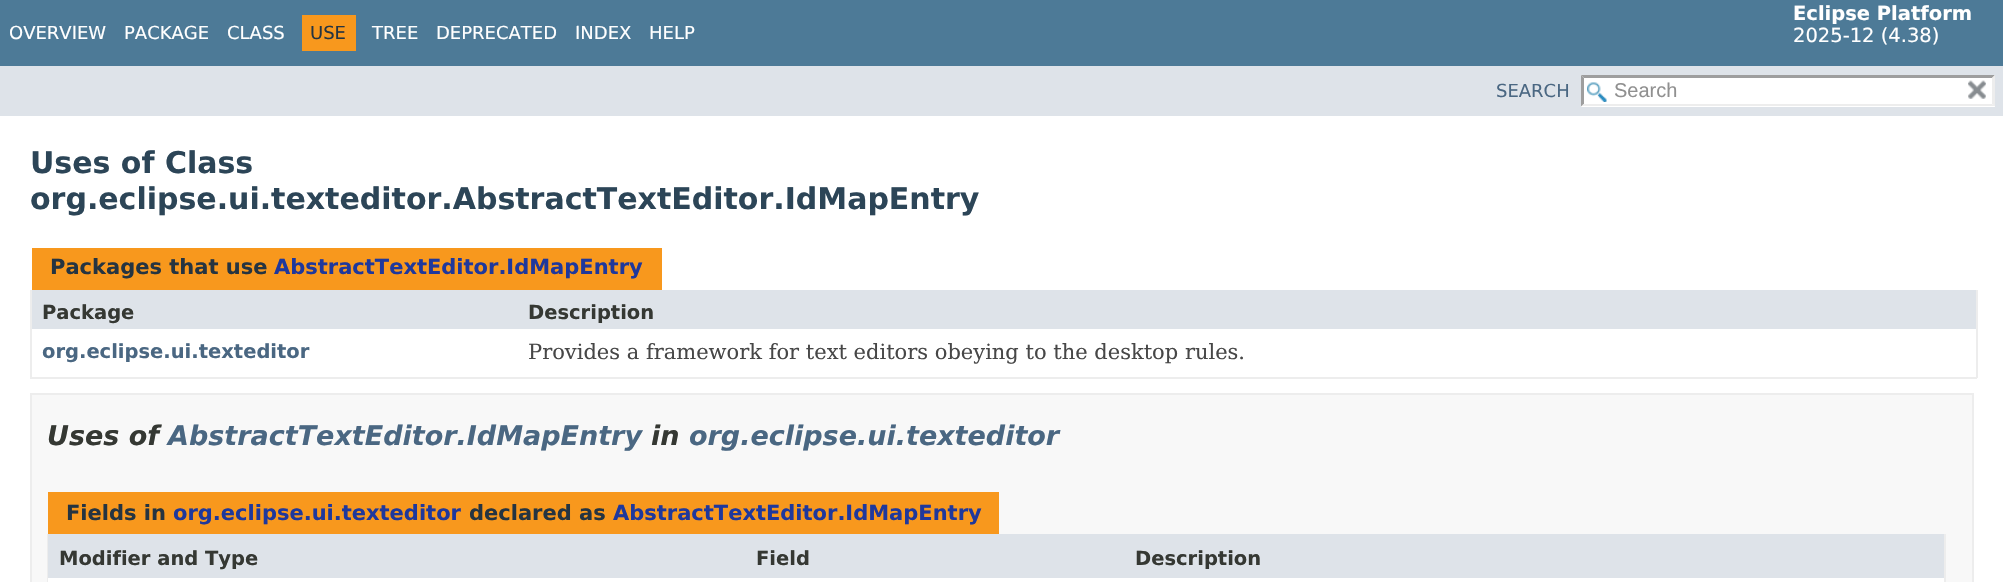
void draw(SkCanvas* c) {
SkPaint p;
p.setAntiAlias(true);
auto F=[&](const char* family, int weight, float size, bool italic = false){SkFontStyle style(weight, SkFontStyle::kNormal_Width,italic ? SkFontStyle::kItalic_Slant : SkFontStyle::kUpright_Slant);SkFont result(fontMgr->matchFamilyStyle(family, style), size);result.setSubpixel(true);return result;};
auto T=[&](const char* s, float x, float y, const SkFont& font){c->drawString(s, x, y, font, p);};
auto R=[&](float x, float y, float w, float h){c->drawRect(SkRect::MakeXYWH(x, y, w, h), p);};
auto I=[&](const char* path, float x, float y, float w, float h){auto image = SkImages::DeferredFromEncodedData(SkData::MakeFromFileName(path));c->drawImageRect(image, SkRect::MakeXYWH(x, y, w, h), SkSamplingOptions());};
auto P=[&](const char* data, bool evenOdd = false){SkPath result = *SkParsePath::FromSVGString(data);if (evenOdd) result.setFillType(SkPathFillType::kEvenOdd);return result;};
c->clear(0xffffffff);
p.setColor(0xff4d7a97);
R(0,0,2003,66);
auto f1 = F("DejaVu Sans",400,18);
p.setColor(0xffffffff);
T("OVERVIEW",9,39,f1);
T("PACKAGE",124,39,f1);
T("CLASS",227,39,f1);
p.setColor(0xfff8981d);
R(302,15,54,36);
p.setColor(0xff253441);
T("USE",310,39,f1);
p.setColor(0xffffffff);
T("TREE",372,39,f1);
T("DEPRECATED",436,39,f1);
T("INDEX",575,39,f1);
T("HELP",649,39,f1);
auto f2 = F("DejaVu Sans",700,19.5);
T("Eclipse Platform",1793,20,f2);
auto f3 = F("DejaVu Sans",400,19.5);
T("2025-12 (4.38)",1793,42,f3);
p.setColor(0xffdee3e9);
R(0,66,2003,50);
p.setColor(0xff4a6782);
T("SEARCH",1496,97,f1);
p.setColor(0xffffffff);
R(1581,75,414,32);
I("1.png",1587,82,20,20);
p.setColor(0xff9e9e9e);
c->drawPath(P("M1581 75h414l-3 3h-408z"),p);
p.setColor(0xffededed);
c->drawPath(P("M1995 75v31.5l-3-3v-25.5z"),p);
c->drawPath(P("M1995 106h-414l3-2h408z"),p);
p.setColor(0xff9e9e9e);
c->drawPath(P("M1581 106.5v-31.5l3 3v25.5z"),p);
auto f4 = F("Liberation Sans",400,20);
p.setColor(0xff909090);
T("Search",1614,97,f4);
I("2.png",1968,80,18,19);
auto f5 = F("DejaVu Sans",700,30);
p.setColor(0xff2c4557);
T("Uses of Class",30,173,f5);
T("org.eclipse.ui.texteditor.AbstractTextEditor.IdMapEntry",30,209,f5);
p.setColor(0xfff8981d);
R(32,248,630,42);
auto f6 = F("DejaVu Sans",700,21);
p.setColor(0xff253441);
T("Packages that use",50,274,f6);
p.setColor(0xff1f389c);
T("AbstractTextEditor.IdMapEntry",274,274,f6);
p.setColor(0xffededed);
R(1976,290,2,88);
R(30,377,1947,2);
R(30,290,2,88);
p.setColor(0xffdee3e9);
R(32,290,1944,39);
p.setColor(0xff353833);
T("Package",42,319,f2);
T("Description",528,319,f2);
p.setColor(0xff4a6782);
T("org.eclipse.ui.texteditor",42,358,f2);
auto f7 = F("DejaVu Serif",400,21);
p.setColor(0xff474747);
T("Provides a framework for text editors obeying to the desktop rules.",528,359,f7);
p.setColor(0xfff8f8f8);
c->drawRect(SkRect::MakeXYWH(31,394,1942,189),p);
p.setStroke(true);
p.setStrokeWidth(2);
p.setColor(0xffededed);
c->drawRect(SkRect::MakeXYWH(31,394,1942,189),p);
auto f8 = F("DejaVu Sans",700,27,true);
p.setStroke(false);
p.setColor(0xff353833);
T("Uses of",47,445,f8);
p.setColor(0xff4a6782);
T("AbstractTextEditor.IdMapEntry",168,445,f8);
p.setColor(0xff353833);
T("in",651,445,f8);
p.setColor(0xff4a6782);
T("org.eclipse.ui.texteditor",689,445,f8);
p.setColor(0xfff8981d);
R(48,492,951,42);
p.setColor(0xff253441);
T("Fields in",66,520,f6);
p.setColor(0xff1f389c);
T("org.eclipse.ui.texteditor",173,520,f6);
p.setColor(0xff253441);
T("declared as",469,520,f6);
p.setColor(0xff1f389c);
T("AbstractTextEditor.IdMapEntry",613,520,f6);
p.setColor(0xffededed);
R(1944,534,2,48);
R(47,534,1,48);
p.setColor(0xffdee3e9);
R(48,534,1896,44);
p.setColor(0xff353833);
T("Modifier and Type",59,565,f2);
T("Field",756,565,f2);
T("Description",1135,565,f2);
p.setColor(0xffffffff);
R(48,578,1896,4);
}
